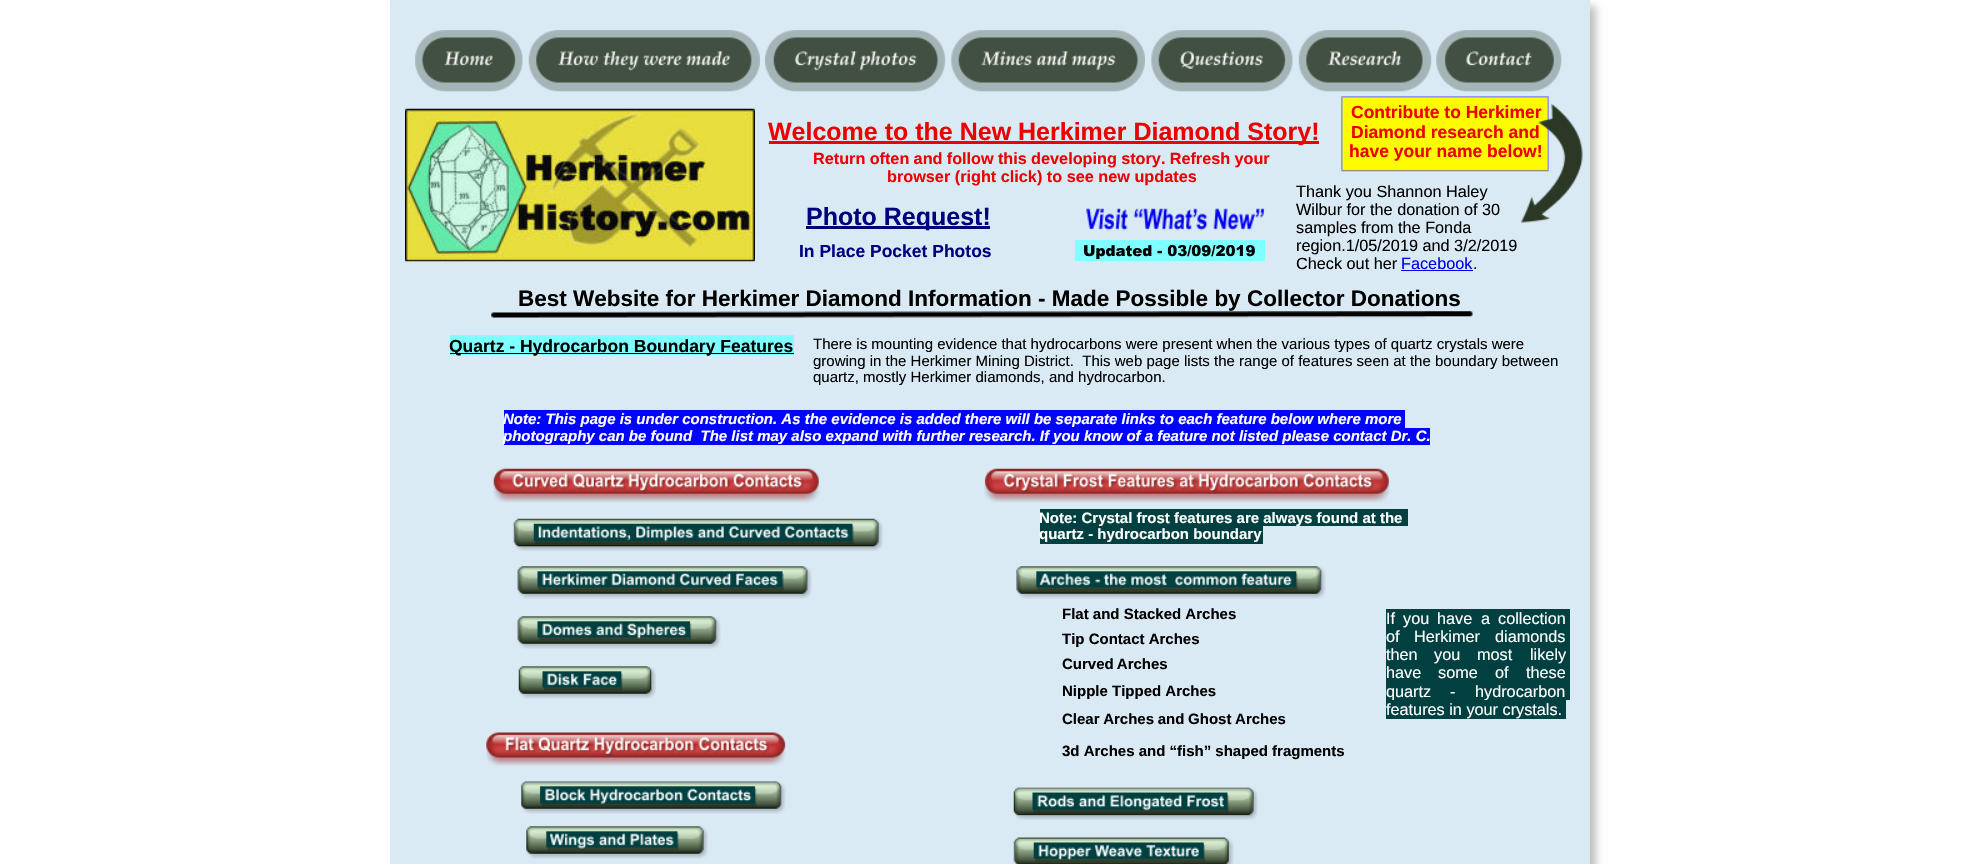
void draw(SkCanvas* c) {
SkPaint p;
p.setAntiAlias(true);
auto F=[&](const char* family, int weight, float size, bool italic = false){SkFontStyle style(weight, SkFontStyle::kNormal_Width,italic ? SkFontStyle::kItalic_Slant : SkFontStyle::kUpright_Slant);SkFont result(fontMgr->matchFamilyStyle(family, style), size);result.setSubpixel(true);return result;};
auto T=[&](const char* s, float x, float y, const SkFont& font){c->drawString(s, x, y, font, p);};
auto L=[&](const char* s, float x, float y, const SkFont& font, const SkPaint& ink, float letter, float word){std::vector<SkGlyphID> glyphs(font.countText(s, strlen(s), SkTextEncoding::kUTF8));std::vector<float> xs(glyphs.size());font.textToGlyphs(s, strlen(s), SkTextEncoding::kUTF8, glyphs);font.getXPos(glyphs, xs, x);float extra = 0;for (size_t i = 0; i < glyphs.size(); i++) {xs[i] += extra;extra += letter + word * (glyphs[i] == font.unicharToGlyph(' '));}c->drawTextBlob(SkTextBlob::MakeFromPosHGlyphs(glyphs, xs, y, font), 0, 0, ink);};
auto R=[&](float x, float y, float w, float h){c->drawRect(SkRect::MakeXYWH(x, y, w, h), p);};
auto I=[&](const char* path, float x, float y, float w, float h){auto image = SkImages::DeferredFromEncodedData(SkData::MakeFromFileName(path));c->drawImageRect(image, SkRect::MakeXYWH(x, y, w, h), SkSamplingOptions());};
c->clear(0xffffffff);
p.setColor(0x40000000);
p.setMaskFilter(SkMaskFilter::MakeBlur(kNormal_SkBlurStyle, 4));
c->drawRect(SkRect::MakeXYWH(396,6,1200,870),p);
p.setMaskFilter(nullptr);
p.setColor(0xffdaeaf5);
R(390,0,1200,864);
I("1.png",415,30,108,62);
I("2.png",528,30,232,62);
I("3.png",765,30,181,62);
I("4.png",951,30,194,62);
I("5.png",1151,30,142,62);
I("6.png",1298,30,134,62);
I("7.png",1436,30,126,62);
I("8.png",1341,96,208,76);
auto f1 = F("Liberation Sans",700,17.5);
p.setColor(0xffec0000);
T("Contribute to Herkimer",1351,118,f1);
T("Diamond research and",1351,138,f1);
T("have your name below!",1349,157,f1);
I("9.png",1521,103,62,120);
I("10.png",405,108,350,154);
R(769,141,550,3);
auto f2 = F("Liberation Sans",700,25);
T("Welcome to the New Herkimer Diamond Story!",768,140,f2);
auto f3 = F("Liberation Sans",700,16.25);
L("Return often and follow this developing story. Refresh your",813,164,f3,p,0,-.25);
T("browser (right click) to see new updates",887,182,f3);
p.setColor(0xff00017f);
R(806,226,184,3);
T("Photo Request!",806,225,f2);
I("11.png",1086,208,179,23);
auto f4 = F("Liberation Sans",400,16.25);
p.setColor(0xff000000);
T("Thank you Shannon Haley",1296,197,f4);
T("Wilbur for the donation of 30",1296,215,f4);
T("samples from the Fonda",1296,233,f4);
T("region.1/05/2019 and 3/2/2019",1296,251,f4);
T("Check out her",1296,269,f4);
p.setColor(0xff0000ee);
T("Facebook",1401,269,f4);
R(1401,270,72,1);
p.setColor(0xff000000);
T(".",1473,269,f4);
p.setColor(0xff00017f);
T("In Place Pocket Photos",799,257,f1);
p.setColor(0xff7fffff);
R(1075,240,190,21);
auto f5 = F("Arial",900,15);
p.setColor(0xff000000);
T("Updated - 03/09/2019",1083,256,f5);
auto f6 = F("Liberation Sans",700,22.5);
T("Best Website for Herkimer Diamond Information - Made Possible by Collector Donations",518,306,f6);
I("12.png",491,311,982,7);
p.setColor(0xff7fffff);
R(450,335,344,20);
p.setColor(0xff000000);
R(450,353,344,1);
T("Quartz - Hydrocarbon Boundary Features",449,352,f1);
auto f7 = F("Liberation Sans",400,15);
T("There is mounting evidence that hydrocarbons were present when the various types of quartz crystals were",813,349,f7);
T("growing in the Herkimer Mining District.  This web page lists the range of features seen at the boundary between",813,366,f7);
T("quartz, mostly Herkimer diamonds, and hydrocarbon.",813,382,f7);
p.setColor(0xff0003ff);
R(504,410,901,18);
auto f8 = F("Liberation Sans",700,15,true);
p.setColor(0xffffffff);
T("Note: This page is under construction. As the evidence is added there will be separate links to each feature below where more",503,424,f8);
p.setColor(0xff0003ff);
R(504,428,926,17);
p.setColor(0xffffffff);
T("photography can be found  The list may also expand with further research. If you know of a feature not listed please contact Dr. C.",503,441,f8);
I("13.png",493,468,327,35);
I("14.png",984,468,406,35);
I("15.png",513,518,370,33);
p.setColor(0xff004040);
R(1040,509,368,17);
auto f9 = F("Liberation Sans",700,15);
p.setColor(0xffffffff);
T("Note: Crystal frost features are always found at the",1039,523,f9);
p.setColor(0xff004040);
R(1040,526,223,18);
p.setColor(0xffffffff);
T("quartz - hydrocarbon boundary",1039,539,f9);
I("16.png",517,566,295,33);
I("17.png",1016,566,310,33);
I("18.png",517,616,204,33);
p.setColor(0xff000000);
T("Flat and Stacked Arches",1062,619,f9);
p.setColor(0xff004040);
R(1386,609,184,19);
p.setColor(0xffffffff);
T("If",1386,624,f4);
T("you",1403,624,f4);
T("have",1437,624,f4);
T("a",1481,624,f4);
T("collection",1498,624,f4);
p.setColor(0xff004040);
R(1386,628,184,17);
p.setColor(0xffffffff);
T("of",1386,642,f4);
T("Herkimer",1414,642,f4);
T("diamonds",1495,642,f4);
p.setColor(0xff004040);
R(1386,645,184,19);
p.setColor(0xffffffff);
T("then",1386,660,f4);
T("you",1434,660,f4);
T("most",1477,660,f4);
T("likely",1530,660,f4);
p.setColor(0xff004040);
R(1386,664,184,17);
p.setColor(0xffffffff);
T("have",1386,678,f4);
T("some",1438,678,f4);
T("of",1495,678,f4);
T("these",1526,678,f4);
p.setColor(0xff004040);
R(1386,681,184,19);
p.setColor(0xffffffff);
T("quartz",1386,697,f4);
T("-",1450,697,f4);
T("hydrocarbon",1475,697,f4);
p.setColor(0xff004040);
R(1386,700,180,19);
p.setColor(0xffffffff);
T("features in your crystals.",1386,715,f4);
p.setColor(0xff000000);
T("Tip Contact Arches",1062,644,f9);
L("Curved Arches",1062,669,f9,p,0,-1);
I("19.png",518,666,138,33);
T("Nipple Tipped Arches",1062,696,f9);
L("Clear Arches and Ghost Arches",1062,724,f9,p,0,-.5);
I("20.png",486,732,300,34);
T("3d Arches and “fish” shaped fragments",1062,756,f9);
I("21.png",521,781,265,33);
I("22.png",1013,787,245,33);
I("23.png",526,826,182,33);
I("24.png",1013,837,221,27);
}
